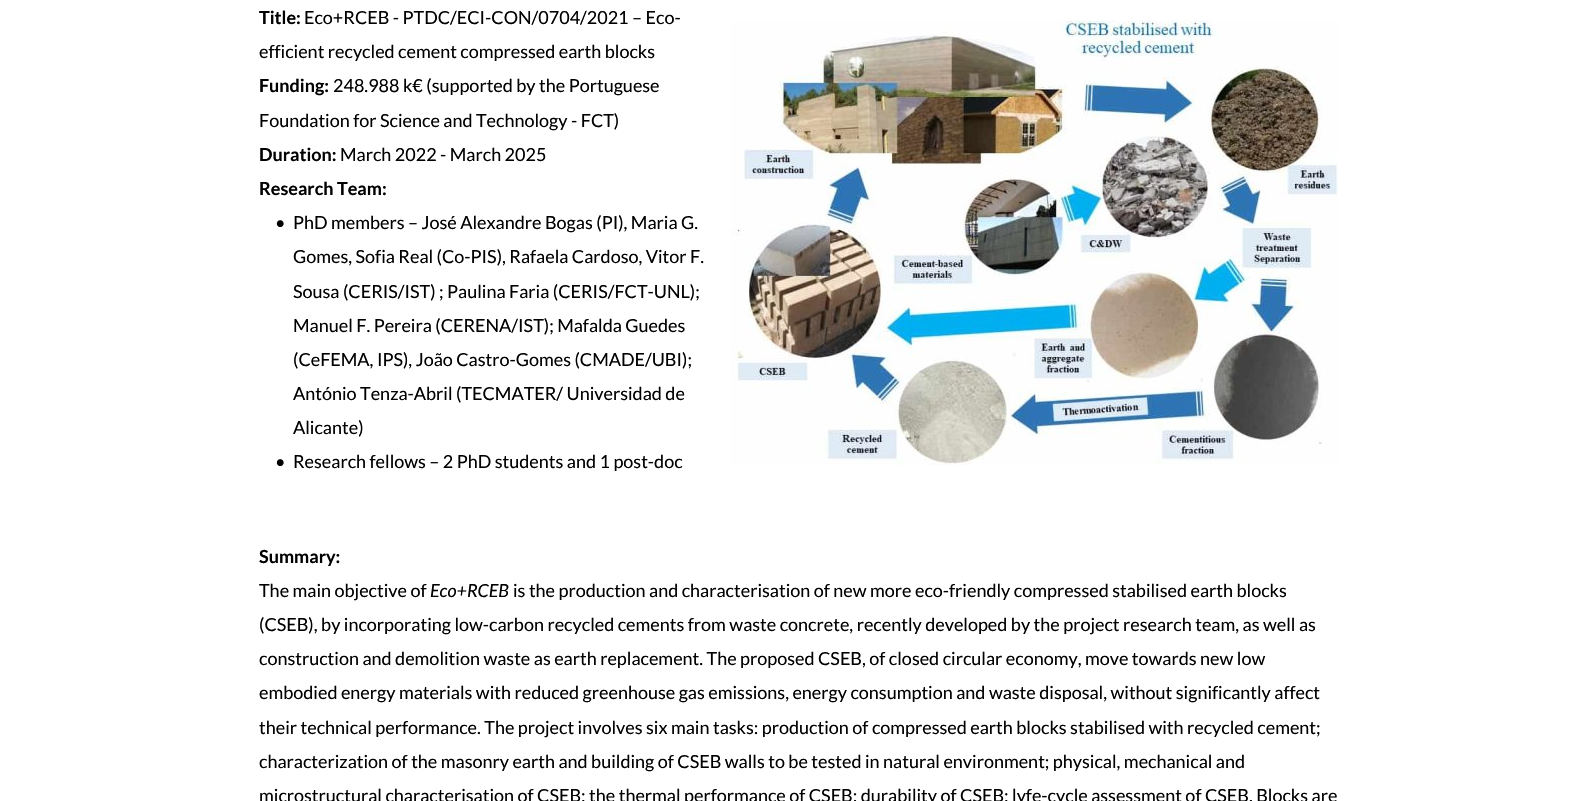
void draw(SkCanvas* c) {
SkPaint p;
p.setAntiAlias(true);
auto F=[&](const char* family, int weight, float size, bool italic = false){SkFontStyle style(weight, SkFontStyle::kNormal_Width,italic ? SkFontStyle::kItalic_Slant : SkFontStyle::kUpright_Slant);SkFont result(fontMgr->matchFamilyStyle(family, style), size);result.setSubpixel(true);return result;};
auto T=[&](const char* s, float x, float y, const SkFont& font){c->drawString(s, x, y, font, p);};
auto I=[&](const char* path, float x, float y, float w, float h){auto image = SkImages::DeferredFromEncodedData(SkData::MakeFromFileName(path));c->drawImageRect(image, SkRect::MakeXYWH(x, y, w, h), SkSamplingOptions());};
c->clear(0xffffffff);
auto f1 = F("Lato",700,18);
p.setColor(0xff000000);
T("Title:",259,24,f1);
auto f2 = F("Lato",400,18);
T("Eco+RCEB - PTDC/ECI-CON/0704/2021 – Eco-",304,24,f2);
T("efficient recycled cement compressed earth blocks",259,58,f2);
T("Funding:",259,92,f1);
T("248.988 k€ (supported by the Portuguese",333,92,f2);
T("Foundation for Science and Technology - FCT)",259,127,f2);
T("Duration:",259,161,f1);
T("March 2022 - March 2025",340,161,f2);
T("Research Team:",259,195,f1);
T("•",275,229,f2);
T("PhD members – José Alexandre Bogas (PI), Maria G.",293,229,f2);
T("Gomes, Sofia Real (Co-PIS), Rafaela Cardoso, Vitor F.",293,263,f2);
T("Sousa (CERIS/IST) ; Paulina Faria (CERIS/FCT-UNL);",293,298,f2);
T("Manuel F. Pereira (CERENA/IST); Mafalda Guedes",293,332,f2);
T("(CeFEMA, IPS), João Castro-Gomes (CMADE/UBI);",293,366,f2);
T("António Tenza-Abril (TECMATER/ Universidad de",293,400,f2);
T("Alicante)",293,434,f2);
T("•",275,468,f2);
T("Research fellows – 2 PhD students and 1 post-doc",293,468,f2);
I("1.png",731,20,607,445);
T("Summary:",259,563,f1);
T("The main objective of",259,597,f2);
auto f3 = F("Lato",400,18,true);
T("Eco+RCEB",430,597,f3);
T("is the production and characterisation of new more eco-friendly compressed stabilised earth blocks",513,597,f2);
T("(CSEB), by incorporating low-carbon recycled cements from waste concrete, recently developed by the project research team, as well as",259,631,f2);
T("construction and demolition waste as earth replacement. The proposed CSEB, of closed circular economy, move towards new low",259,665,f2);
T("embodied energy materials with reduced greenhouse gas emissions, energy consumption and waste disposal, without significantly affect",259,699,f2);
T("their technical performance. The project involves six main tasks: production of compressed earth blocks stabilised with recycled cement;",259,734,f2);
T("characterization of the masonry earth and building of CSEB walls to be tested in natural environment; physical, mechanical and",259,768,f2);
T("microstructural characterisation of CSEB; the thermal performance of CSEB; durability of CSEB; lyfe-cycle assessment of CSEB. Blocks are",259,802,f2);
}
